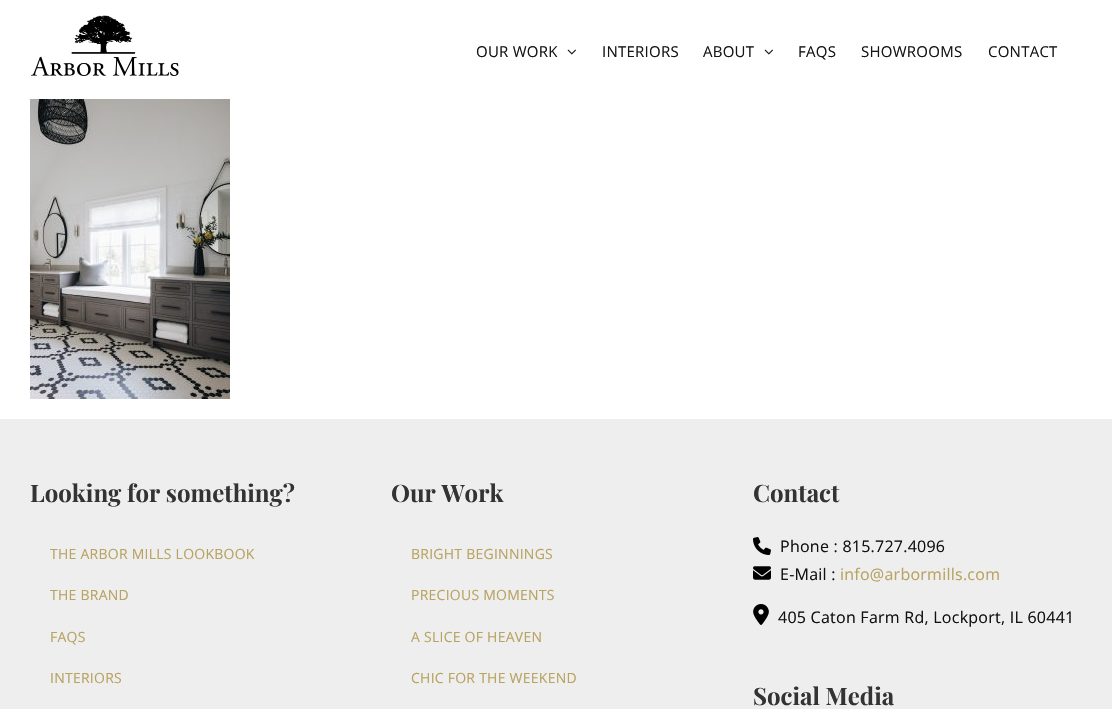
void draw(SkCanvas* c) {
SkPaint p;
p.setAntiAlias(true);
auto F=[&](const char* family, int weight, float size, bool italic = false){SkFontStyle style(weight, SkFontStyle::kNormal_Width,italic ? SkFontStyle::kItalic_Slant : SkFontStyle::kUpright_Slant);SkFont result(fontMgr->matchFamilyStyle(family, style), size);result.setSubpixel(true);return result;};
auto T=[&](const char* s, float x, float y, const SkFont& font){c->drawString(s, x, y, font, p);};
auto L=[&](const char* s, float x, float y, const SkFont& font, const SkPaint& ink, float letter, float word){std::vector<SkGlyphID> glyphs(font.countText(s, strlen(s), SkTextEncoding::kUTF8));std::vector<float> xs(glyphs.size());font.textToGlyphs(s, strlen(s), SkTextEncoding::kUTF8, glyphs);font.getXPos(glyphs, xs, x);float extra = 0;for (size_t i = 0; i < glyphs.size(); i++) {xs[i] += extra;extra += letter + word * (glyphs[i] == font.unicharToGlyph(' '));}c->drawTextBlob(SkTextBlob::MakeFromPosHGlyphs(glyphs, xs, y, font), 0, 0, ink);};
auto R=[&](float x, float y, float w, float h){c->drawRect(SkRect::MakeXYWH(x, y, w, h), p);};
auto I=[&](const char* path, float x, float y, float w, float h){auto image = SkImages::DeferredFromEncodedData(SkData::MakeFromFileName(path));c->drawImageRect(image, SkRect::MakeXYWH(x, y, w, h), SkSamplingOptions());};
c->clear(0xffffffff);
I("1.png",31,15,148,61);
auto f1 = F("Open Sans",400,15);
p.setColor(0xff141617);
L("OUR WORK",476,57,f1,p,.25,0);
I("2.png",567,49,9,6);
L("INTERIORS",602,57,f1,p,.25,0);
L("ABOUT",703,57,f1,p,.25,0);
I("2.png",764,49,9,6);
L("FAQS",798,57,f1,p,.25,0);
L("SHOWROOMS",861,57,f1,p,.25,0);
L("CONTACT",988,57,f1,p,.25,0);
I("3.png",30,99,200,300);
p.setColor(0xffeeeeee);
R(0,419,1112,290);
auto f2 = F("Playfair Display",700,24);
p.setColor(0xff333333);
T("Looking for something?",30,502,f2);
auto f3 = F("Open Sans",400,14);
p.setColor(0xffb9a361);
L("THE ARBOR MILLS LOOKBOOK",50,559,f3,p,.25,0);
L("THE BRAND",50,600,f3,p,.25,0);
L("FAQS",50,642,f3,p,.25,0);
L("INTERIORS",50,683,f3,p,.25,0);
p.setColor(0xff333333);
T("Our Work",391,502,f2);
p.setColor(0xffb9a361);
L("BRIGHT BEGINNINGS",411,559,f3,p,.25,0);
L("PRECIOUS MOMENTS",411,600,f3,p,.25,0);
L("A SLICE OF HEAVEN",411,642,f3,p,.25,0);
L("CHIC FOR THE WEEKEND",411,683,f3,p,.25,0);
p.setColor(0xff333333);
T("Contact",753,502,f2);
I("4.png",753,537,18,18);
auto f4 = F("Open Sans",400,16);
p.setColor(0xff111111);
L("Phone : 815.727.4096",780,552,f4,p,.25,0);
I("5.png",753,566,18,14);
L("E-Mail :",780,580,f4,p,.25,0);
p.setColor(0xffb9a361);
L("info@arbormills.com",840,580,f4,p,.25,0);
I("6.png",753,604,16,21);
p.setColor(0xff111111);
L("405 Caton Farm Rd, Lockport, IL 60441",778,623,f4,p,.25,0);
p.setColor(0xff333333);
T("Social Media",753,705,f2);
}
